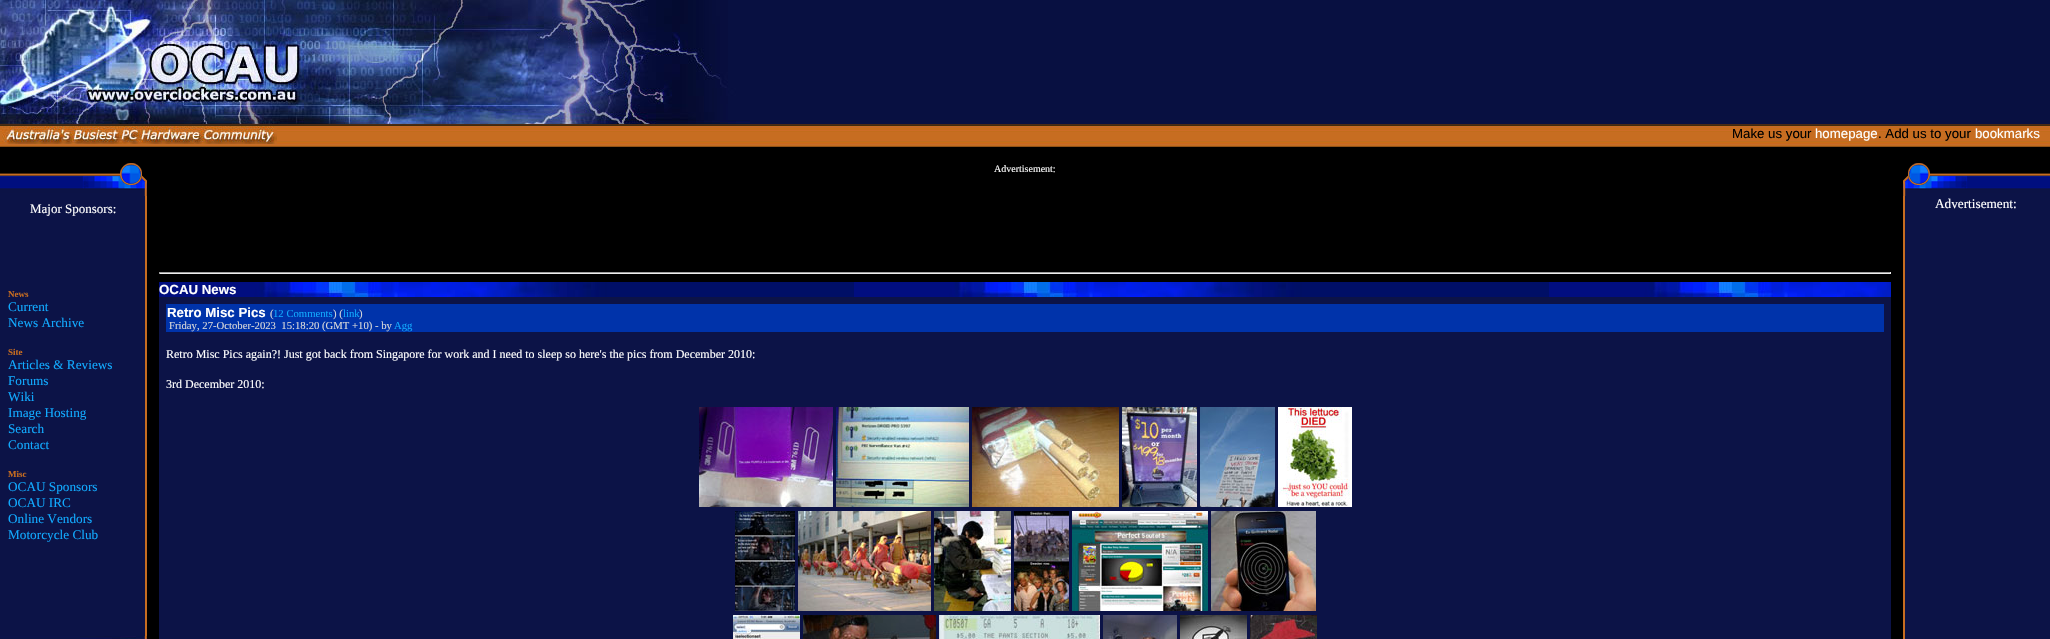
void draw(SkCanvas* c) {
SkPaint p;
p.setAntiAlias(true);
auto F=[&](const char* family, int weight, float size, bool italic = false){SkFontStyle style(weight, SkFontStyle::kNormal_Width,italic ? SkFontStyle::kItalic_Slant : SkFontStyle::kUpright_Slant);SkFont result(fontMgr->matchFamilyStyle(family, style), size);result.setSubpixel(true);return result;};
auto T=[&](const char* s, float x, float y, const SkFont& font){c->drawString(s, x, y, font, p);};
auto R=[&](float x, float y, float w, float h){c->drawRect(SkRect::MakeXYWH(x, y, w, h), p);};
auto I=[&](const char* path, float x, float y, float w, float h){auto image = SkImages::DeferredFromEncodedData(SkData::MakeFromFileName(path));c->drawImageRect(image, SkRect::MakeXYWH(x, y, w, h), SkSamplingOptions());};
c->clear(0xff000000);
p.setColor(0xff081041);
R(750,0,1300,124);
I("1.png",0,0,750,124);
I("2.png",21,8,275,93);
I("3.png",0,124,2050,23);
I("4.png",2,126,275,18);
auto f1 = F("Liberation Sans",400,13.25);
p.setColor(0xff000000);
T("Make us your",1732,138,f1);
p.setColor(0xffffffff);
T("homepage",1815,138,f1);
p.setColor(0xff000000);
T(". Add us to your",1878,138,f1);
p.setColor(0xffffffff);
T("bookmarks",1975,138,f1);
I("5.png",0,196,147,440);
I("6.png",0,163,147,33);
auto f2 = F("Liberation Serif",400,13);
T("Major Sponsors:",30,213,f2);
auto f3 = F("Liberation Serif",700,9);
p.setColor(0xffc66c20);
T("News",8,297,f3);
auto f4 = F("Liberation Serif",400,13.25);
p.setColor(0xff11aaff);
T("Current",8,311,f4);
T("News Archive",8,327,f4);
p.setColor(0xffc66c20);
T("Site",8,355,f3);
p.setColor(0xff11aaff);
T("Articles & Reviews",8,369,f4);
T("Forums",8,385,f4);
T("Wiki",8,401,f4);
T("Image Hosting",8,417,f4);
T("Search",8,433,f4);
T("Contact",8,449,f4);
p.setColor(0xffc66c20);
T("Misc",8,477,f3);
p.setColor(0xff11aaff);
T("OCAU Sponsors",8,491,f4);
T("OCAU IRC",8,507,f4);
T("Online Vendors",8,523,f4);
T("Motorcycle Club",8,539,f4);
I("7.png",0,636,147,3);
auto f5 = F("Liberation Serif",400,10);
p.setColor(0xffffffff);
T("Advertisement:",994,172,f5);
p.setColor(0xff9f9f9f);
R(159,272,1732,1);
p.setColor(0xffeeeeee);
R(1890,272,1,2);
R(159,273,1732,1);
p.setColor(0xff9f9f9f);
R(159,272,1,2);
I("8.png",159,282,1732,15);
auto f6 = F("Liberation Sans",700,13.25);
p.setColor(0xffffffff);
T("OCAU News",159,294,f6);
p.setColor(0xff0c1347);
R(159,297,1732,342);
p.setColor(0xff0033aa);
R(166,304,1718,28);
p.setColor(0xffffffff);
T("Retro Misc Pics",167,317,f6);
auto f7 = F("Liberation Serif",400,10.7);
p.setColor(0xffd9d9d9);
T("(",270,317,f7);
p.setColor(0xff11aaff);
T("12 Comments",273,317,f7);
p.setColor(0xffd9d9d9);
T(") (",333,317,f7);
p.setColor(0xff11aaff);
T("link",343,317,f7);
p.setColor(0xffd9d9d9);
T(")",359,317,f7);
T("Friday, 27-October-2023  15:18:20 (GMT +10) - by",169,329,f7);
p.setColor(0xff11aaff);
T("Agg",394,329,f7);
auto f8 = F("Liberation Serif",400,12);
p.setColor(0xffffffff);
T("Retro Misc Pics again?! Just got back from Singapore for work and I need to sleep so here's the pics from December 2010:",166,358,f8);
T("3rd December 2010:",166,388,f8);
I("9.png",699,407,134,100);
I("10.png",836,407,133,100);
I("11.png",972,407,147,100);
I("12.png",1122,407,75,100);
I("13.png",1200,407,75,100);
I("14.png",1278,407,74,100);
I("15.png",735,511,60,100);
I("16.png",798,511,133,100);
I("17.png",934,511,77,100);
I("18.png",1014,511,55,100);
I("19.png",1072,511,136,100);
I("20.png",1211,511,105,100);
I("21.png",733,615,67,24);
I("22.png",803,615,133,24);
I("23.png",939,615,161,24);
I("24.png",1103,615,74,24);
I("25.png",1180,615,67,24);
I("26.png",1250,615,67,24);
I("27.png",1903,196,147,443);
I("28.png",1903,163,147,33);
T("Advertisement:",1935,208,f4);
}
